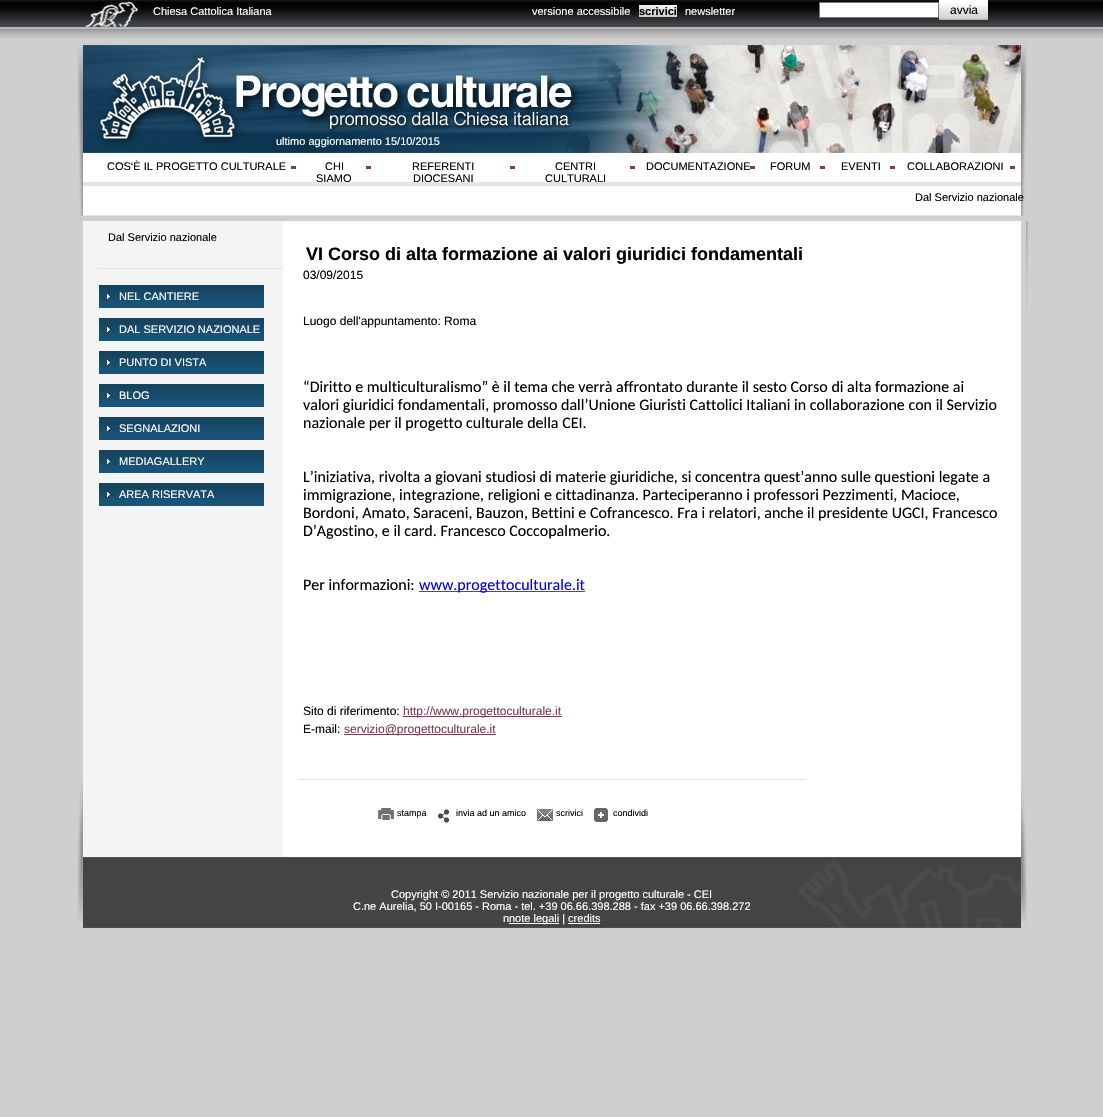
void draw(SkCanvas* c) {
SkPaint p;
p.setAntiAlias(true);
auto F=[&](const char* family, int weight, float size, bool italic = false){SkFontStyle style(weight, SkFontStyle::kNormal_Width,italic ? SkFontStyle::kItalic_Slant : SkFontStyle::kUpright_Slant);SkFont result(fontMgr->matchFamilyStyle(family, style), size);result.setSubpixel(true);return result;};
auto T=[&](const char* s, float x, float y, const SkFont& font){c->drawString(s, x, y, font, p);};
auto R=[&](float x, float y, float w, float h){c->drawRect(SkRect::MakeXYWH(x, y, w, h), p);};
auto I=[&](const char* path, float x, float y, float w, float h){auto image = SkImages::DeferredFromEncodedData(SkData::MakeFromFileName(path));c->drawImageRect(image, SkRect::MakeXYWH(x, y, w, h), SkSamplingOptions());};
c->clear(0xffcfcfcf);
I("1.png",0,0,1103,39);
I("2.png",83,0,57,27);
auto f1 = F("Liberation Sans",400,11);
p.setColor(0xffffffff);
T("Chiesa Cattolica Italiana",153,15,f1);
T("versione accessibile",532,15,f1);
I("3.png",639,5,38,12);
auto f2 = F("Liberation Sans",700,11);
p.setColor(0xff000000);
T("scrivici",639,15,f2);
p.setColor(0xffffffff);
T("newsletter",685,15,f1);
c->drawRect(SkRect::MakeXYWH(819.5,2.5,119,15),p);
p.setStroke(true);
p.setStrokeWidth(1);
p.setColor(0xff777777);
c->drawRect(SkRect::MakeXYWH(819.5,2.5,119,15),p);
I("4.png",939,0,49,20);
auto f3 = F("Liberation Sans",400,12);
p.setStroke(false);
p.setColor(0xff000000);
T("avvia",950,14,f3);
I("5.png",77,45,950,108);
p.setColor(0xffffffff);
T("ultimo aggiornamento 15/10/2015",276,145,f1);
I("6.png",79,153,946,33);
p.setColor(0xff7c3b57);
R(291,166,5,3);
p.setColor(0xff000000);
T("COS‘È IL PROGETTO CULTURALE",107,170,f1);
p.setColor(0xff7c3b57);
R(366,166,5,3);
p.setColor(0xff000000);
T("CHI",325,170,f1);
T("SIAMO",316,182,f1);
p.setColor(0xff7c3b57);
R(510,166,5,3);
p.setColor(0xff000000);
T("REFERENTI",412,170,f1);
T("DIOCESANI",413,182,f1);
p.setColor(0xff7c3b57);
R(630,166,5,3);
p.setColor(0xff000000);
T("CENTRI",555,170,f1);
T("CULTURALI",545,182,f1);
p.setColor(0xff7c3b57);
R(750,166,5,3);
p.setColor(0xff000000);
T("DOCUMENTAZIONE",646,170,f1);
p.setColor(0xff7c3b57);
R(820,166,5,3);
p.setColor(0xff000000);
T("FORUM",770,170,f1);
p.setColor(0xff7c3b57);
R(890,166,5,3);
p.setColor(0xff000000);
T("EVENTI",841,170,f1);
p.setColor(0xff7c3b57);
R(1010,166,5,3);
p.setColor(0xff000000);
T("COLLABORAZIONI",907,170,f1);
I("7.png",79,186,946,30);
T("Dal Servizio nazionale",915,201,f1);
I("8.png",1026,221,3,93);
p.setColor(0xfff4f4f4);
R(83,221,200,557);
p.setColor(0xffe4e4e4);
R(98,268,185,1);
p.setColor(0xff000000);
T("Dal Servizio nazionale",108,241,f1);
I("9.png",99,285,165,23);
p.setColor(0xffffffff);
T("NEL CANTIERE",119,300,f1);
I("9.png",99,318,165,23);
T("DAL SERVIZIO NAZIONALE",119,333,f1);
I("9.png",99,351,165,23);
T("PUNTO DI VISTA",119,366,f1);
I("9.png",99,384,165,23);
T("BLOG",119,399,f1);
I("9.png",99,417,165,23);
T("SEGNALAZIONI",119,432,f1);
I("9.png",99,450,165,23);
T("MEDIAGALLERY",119,465,f1);
I("9.png",99,483,165,23);
T("AREA RISERVATA",119,498,f1);
R(283,221,738,557);
auto f4 = F("Liberation Sans",700,18);
p.setColor(0xff000000);
T("VI Corso di alta formazione ai valori giuridici fondamentali",306,260,f4);
T("03/09/2015",303,279,f3);
T("Luogo dell'appuntamento: Roma",303,325,f3);
auto f5 = F("Carlito",400,16);
T("“Diritto e multiculturalismo” è il tema che verrà affrontato durante il sesto Corso di alta formazione ai",303,392,f5);
T("valori giuridici fondamentali, promosso dall’Unione Giuristi Cattolici Italiani in collaborazione con il Servizio",303,410,f5);
T("nazionale per il progetto culturale della CEI.",303,428,f5);
T("L’iniziativa, rivolta a giovani studiosi di materie giuridiche, si concentra quest’anno sulle questioni legate a",303,482,f5);
T("immigrazione, integrazione, religioni e cittadinanza. Parteciperanno i professori Pezzimenti, Macioce,",303,500,f5);
T("Bordoni, Amato, Saraceni, Bauzon, Bettini e Cofrancesco. Fra i relatori, anche il presidente UGCI, Francesco",303,518,f5);
T("D’Agostino, e il card. Francesco Coccopalmerio.",303,536,f5);
T("Per informazioni:",303,590,f5);
p.setColor(0xff7c3b57);
R(419,591,166,1);
p.setColor(0xff0000ff);
T("www.progettoculturale.it",419,590,f5);
p.setColor(0xff000000);
T("Sito di riferimento:",303,715,f3);
p.setColor(0xff7c3b57);
R(403,716,159,1);
T("http://www.progettoculturale.it",403,715,f3);
p.setColor(0xff000000);
T("E-mail:",303,733,f3);
p.setColor(0xff7c3b57);
R(344,734,152,1);
T("servizio@progettoculturale.it",344,733,f3);
I("10.png",77,778,950,150);
I("11.png",378,808,16,12);
auto f6 = F("Liberation Sans",400,9);
p.setColor(0xff000000);
T("stampa",397,816,f6);
I("12.png",437,809,12,14);
T("invia ad un amico",456,816,f6);
I("13.png",537,808,16,14);
T("scrivici",556,816,f6);
I("14.png",594,808,14,14);
T("condividi",613,816,f6);
p.setColor(0xffffffff);
T("Copyright © 2011 Servizio nazionale per il progetto culturale - CEI",391,898,f1);
T("C.ne Aurelia, 50 I-00165 - Roma - tel. +39 06.66.398.288 - fax +39 06.66.398.272",353,910,f1);
T("n",503,922,f1);
R(509,923,50,1);
T("note legali | credits",509,922,f1);
R(568,923,32,1);
}
